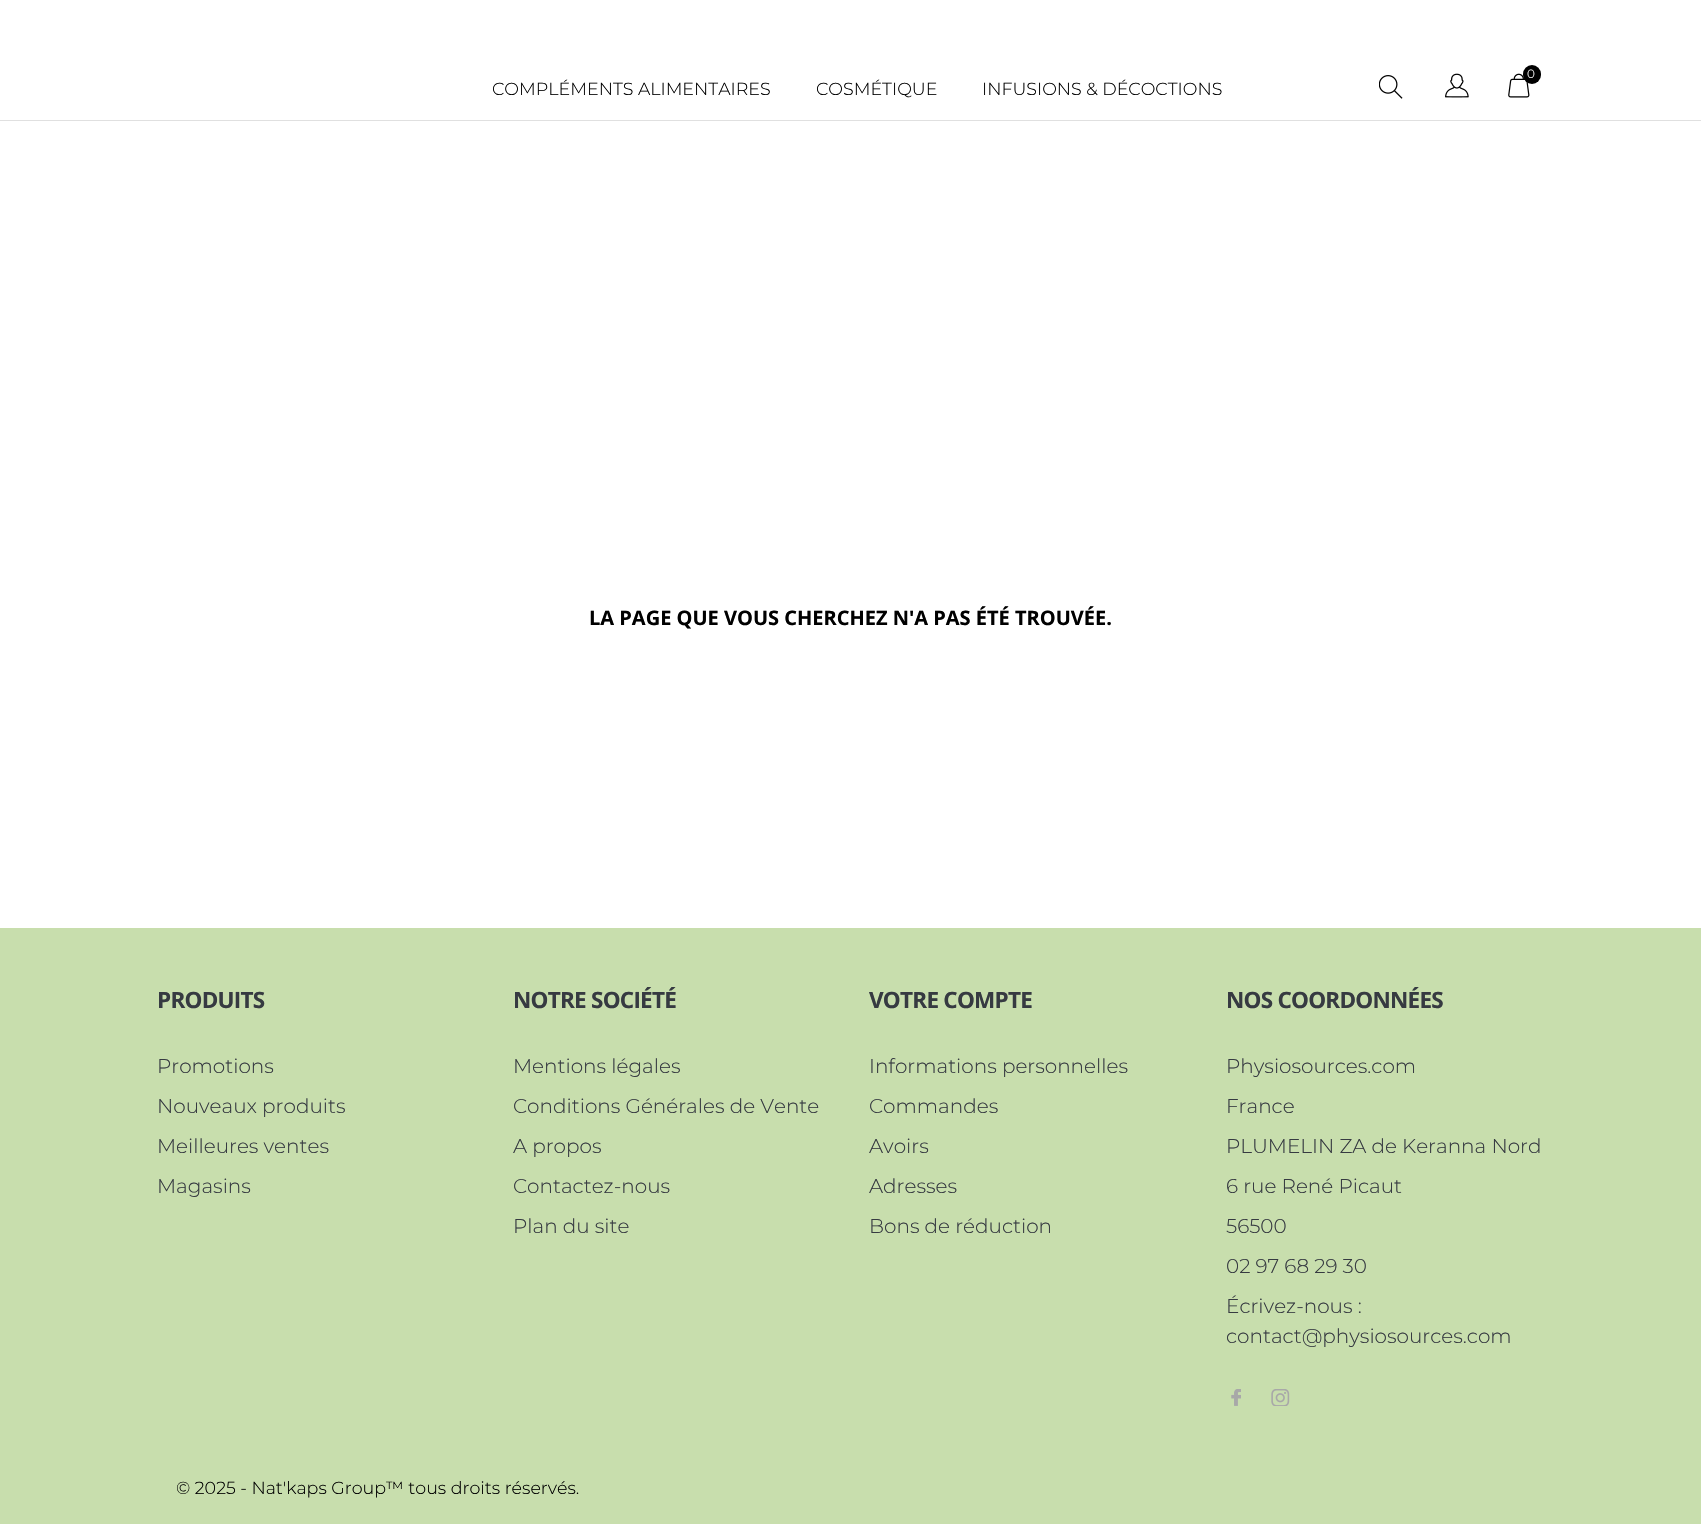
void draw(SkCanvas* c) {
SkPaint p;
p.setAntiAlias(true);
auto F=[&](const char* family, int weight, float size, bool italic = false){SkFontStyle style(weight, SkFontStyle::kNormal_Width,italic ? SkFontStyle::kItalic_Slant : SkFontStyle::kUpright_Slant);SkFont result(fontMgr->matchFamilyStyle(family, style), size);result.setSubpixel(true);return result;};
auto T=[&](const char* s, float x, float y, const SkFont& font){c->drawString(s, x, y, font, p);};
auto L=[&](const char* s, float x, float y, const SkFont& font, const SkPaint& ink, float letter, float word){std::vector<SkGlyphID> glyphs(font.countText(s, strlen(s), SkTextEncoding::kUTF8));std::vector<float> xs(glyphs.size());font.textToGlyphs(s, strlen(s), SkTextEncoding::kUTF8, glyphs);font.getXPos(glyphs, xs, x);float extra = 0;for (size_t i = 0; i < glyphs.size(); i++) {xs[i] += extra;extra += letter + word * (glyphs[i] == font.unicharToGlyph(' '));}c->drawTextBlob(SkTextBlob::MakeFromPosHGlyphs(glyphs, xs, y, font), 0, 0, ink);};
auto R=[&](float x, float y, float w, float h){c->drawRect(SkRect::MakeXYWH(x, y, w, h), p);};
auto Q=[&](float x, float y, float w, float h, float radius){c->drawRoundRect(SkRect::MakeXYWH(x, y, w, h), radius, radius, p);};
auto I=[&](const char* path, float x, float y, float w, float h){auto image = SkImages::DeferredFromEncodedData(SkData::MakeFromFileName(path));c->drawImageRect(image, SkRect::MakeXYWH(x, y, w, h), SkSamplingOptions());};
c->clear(0xffffffff);
p.setColor(0xffe0e0e0);
R(0,120,1701,1);
I("1.png",1379,75,24,24);
I("2.png",1445,73,24,25);
I("3.png",1508,73,22,25);
p.setColor(0xff000000);
Q(1523,65,18,19,9);
auto f1 = F("Montserrat",300,12);
p.setColor(0xffffffff);
T("0",1527,78,f1);
auto f2 = F("Montserrat",300,17.5);
p.setColor(0xff000000);
T("COMPLÉMENTS ALIMENTAIRES",492,95,f2);
T("COSMÉTIQUE",816,95,f2);
T("INFUSIONS & DÉCOCTIONS",982,95,f2);
auto f3 = F("Open Sans",700,20);
T("LA PAGE QUE VOUS CHERCHEZ N'A PAS ÉTÉ TROUVÉE.",589,625,f3);
p.setColor(0xffc8dead);
R(0,928,1701,596);
auto f4 = F("Open Sans",700,22.5);
p.setColor(0xff363a41);
L("PRODUITS",157,1008,f4,p,-.75,0);
auto f5 = F("Montserrat",300,20);
T("Promotions",157,1073,f5);
T("Nouveaux produits",157,1113,f5);
T("Meilleures ventes",157,1153,f5);
T("Magasins",157,1193,f5);
L("NOTRE SOCIÉTÉ",513,1008,f4,p,-.75,0);
T("Mentions légales",513,1073,f5);
T("Conditions Générales de Vente",513,1113,f5);
T("A propos",513,1153,f5);
T("Contactez-nous",513,1193,f5);
T("Plan du site",513,1233,f5);
L("VOTRE COMPTE",869,1008,f4,p,-.75,0);
T("Informations personnelles",869,1073,f5);
T("Commandes",869,1113,f5);
T("Avoirs",869,1153,f5);
T("Adresses",869,1193,f5);
T("Bons de réduction",869,1233,f5);
L("NOS COORDONNÉES",1226,1008,f4,p,-.75,0);
T("Physiosources.com",1226,1073,f5);
T("France",1226,1113,f5);
T("PLUMELIN ZA de Keranna Nord",1226,1153,f5);
T("6 rue René Picaut",1226,1193,f5);
T("56500",1226,1233,f5);
T("02 97 68 29 30",1226,1273,f5);
T("Écrivez-nous :",1226,1313,f5);
T("contact@physiosources.com",1226,1343,f5);
I("4.png",1231,1389,10,17);
I("5.png",1271,1389,19,17);
p.setColor(0xff000000);
T("© 2025 - Nat'kaps Group™ tous droits réservés.",176,1494,f2);
}
